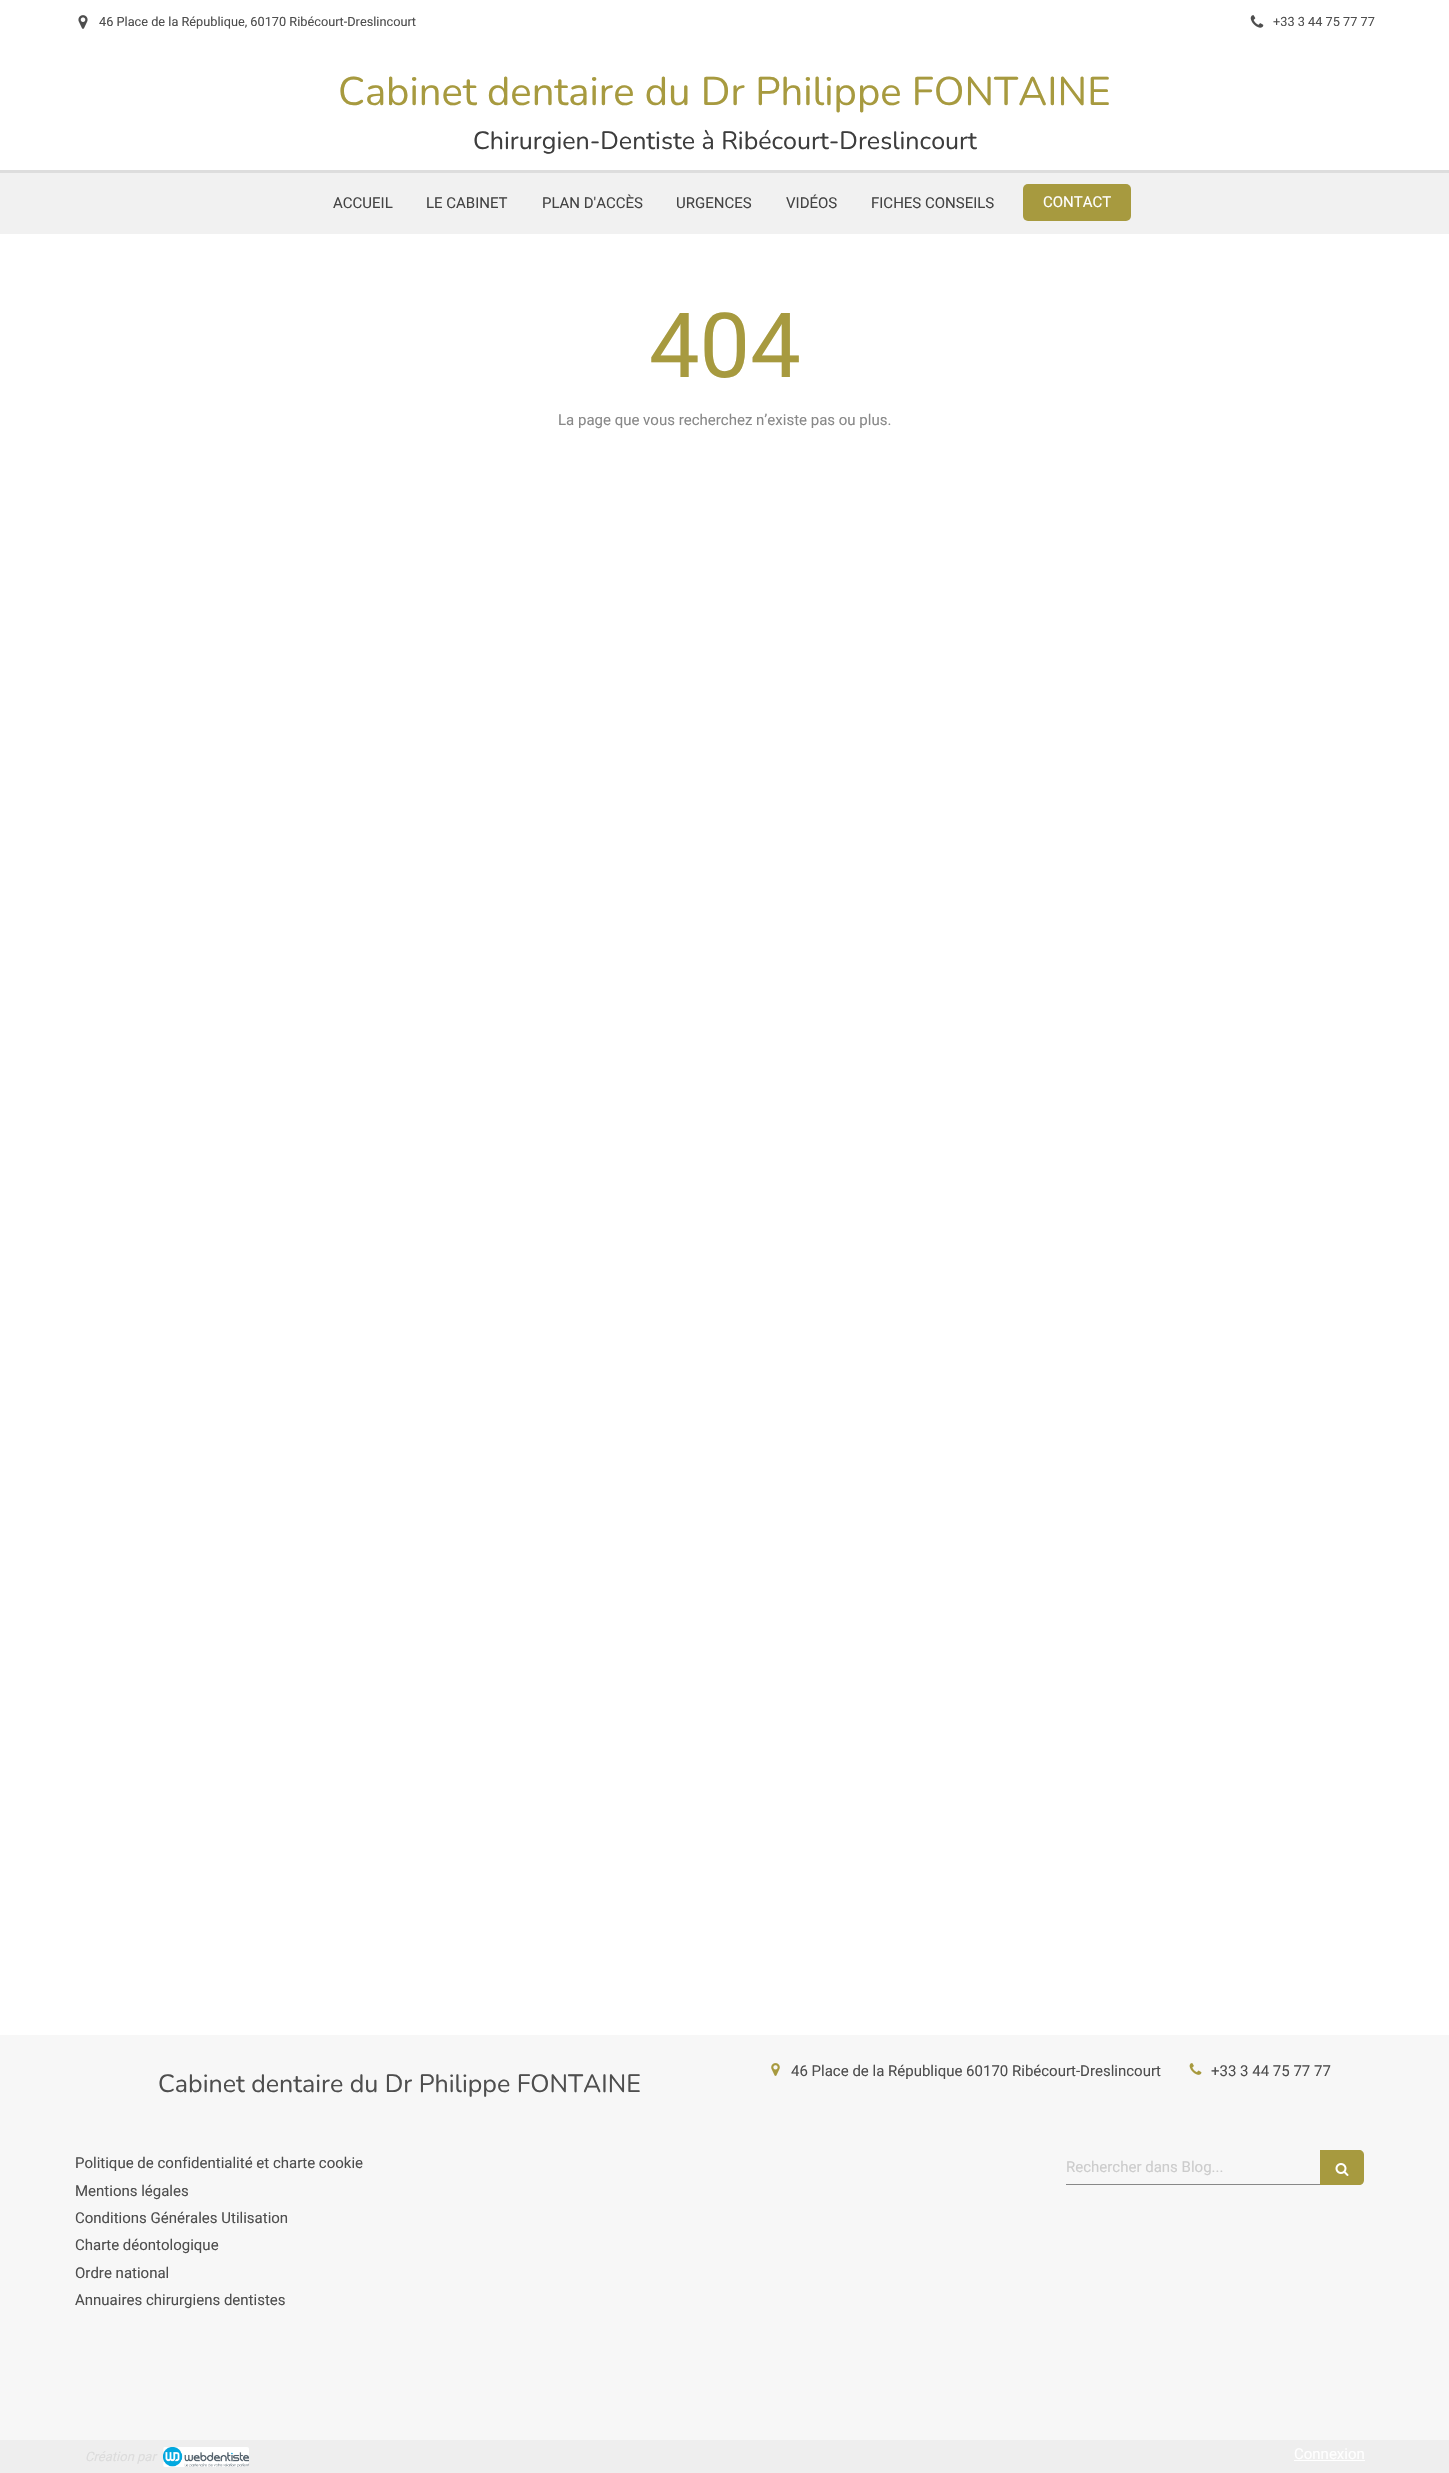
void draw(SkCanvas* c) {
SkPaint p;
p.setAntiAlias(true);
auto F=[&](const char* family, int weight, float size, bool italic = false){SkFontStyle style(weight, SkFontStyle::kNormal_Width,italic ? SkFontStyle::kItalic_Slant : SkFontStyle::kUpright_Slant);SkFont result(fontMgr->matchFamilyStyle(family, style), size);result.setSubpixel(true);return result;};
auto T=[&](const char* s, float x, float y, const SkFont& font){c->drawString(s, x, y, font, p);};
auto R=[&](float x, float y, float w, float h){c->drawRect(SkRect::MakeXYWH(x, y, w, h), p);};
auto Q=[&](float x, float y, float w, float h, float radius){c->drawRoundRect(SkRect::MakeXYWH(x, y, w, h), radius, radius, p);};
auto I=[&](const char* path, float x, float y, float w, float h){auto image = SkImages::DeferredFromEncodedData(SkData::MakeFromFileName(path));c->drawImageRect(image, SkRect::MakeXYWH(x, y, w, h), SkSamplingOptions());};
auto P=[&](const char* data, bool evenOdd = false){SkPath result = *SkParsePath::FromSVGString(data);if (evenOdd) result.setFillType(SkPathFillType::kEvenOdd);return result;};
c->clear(0xffffffff);
p.setColor(0xfff1f1f1);
R(0,173,1449,61);
I("1.png",78,15,10,14);
auto f1 = F("Roboto",400,12.75);
p.setColor(0xff4e4e4e);
T("46 Place de la République, 60170 Ribécourt-Dreslincourt",99,26,f1);
I("2.png",1250,15,14,13);
T("+33 3 44 75 77 77",1273,26,f1);
auto f2 = F("Nunito",400,40);
p.setColor(0xffa79a3f);
T("Cabinet dentaire du Dr Philippe FONTAINE",338,105,f2);
auto f3 = F("Nunito",400,25);
p.setColor(0xff3d3d3d);
T("Chirurgien-Dentiste à Ribécourt-Dreslincourt",473,149,f3);
p.setColor(0xffdddddd);
R(0,170,1449,3);
auto f4 = F("Roboto",400,15);
p.setColor(0xff444444);
T("ACCUEIL",333,208,f4);
T("LE CABINET",426,208,f4);
T("PLAN D'ACCÈS",542,208,f4);
T("URGENCES",676,208,f4);
T("VIDÉOS",786,208,f4);
T("FICHES CONSEILS",871,208,f4);
p.setColor(0xffa79a3f);
Q(1023,184,108,37,5);
p.setColor(0xffffffff);
T("CONTACT",1043,207,f4);
auto f5 = F("Roboto",400,90);
p.setColor(0xffa79a3f);
T("404",649,377,f5);
p.setColor(0xff888888);
T("La page que vous recherchez n’existe pas ou plus.",558,425,f4);
p.setColor(0xfff7f7f7);
R(0,2035,1449,405);
I("3.png",771,2063,9,13);
p.setColor(0xff4e4e4e);
T("46 Place de la République 60170 Ribécourt-Dreslincourt",791,2076,f4);
I("4.png",1189,2063,13,12);
T("+33 3 44 75 77 77",1211,2076,f4);
T("Cabinet dentaire du Dr Philippe FONTAINE",158,2092,f3);
T("Politique de confidentialité et charte cookie",75,2168,f4);
T("Mentions légales",75,2196,f4);
T("Conditions Générales Utilisation",75,2223,f4);
T("Charte déontologique",75,2250,f4);
T("Ordre national",75,2278,f4);
T("Annuaires chirurgiens dentistes",75,2305,f4);
p.setColor(0xff888888);
R(1066,2184,255,1);
p.setColor(0xffcccccc);
T("Rechercher dans Blog...",1066,2172,f4);
p.setColor(0xffa79a3f);
c->drawPath(P("M1320 2150h39c3 0 5 2 5 5v25c0 3-2 5-5 5h-39z"),p);
I("5.png",1335,2163,14,13);
p.setColor(0xffeeeeee);
R(0,2440,1449,33);
auto f6 = F("Roboto",400,13,true);
p.setColor(0xffdcdcdc);
T("Création par",85,2461,f6);
I("6.png",163,2447,86,20);
p.setColor(0xffffffff);
T("Connexion",1294,2459,f4);
R(1294,2460,71,1);
}
